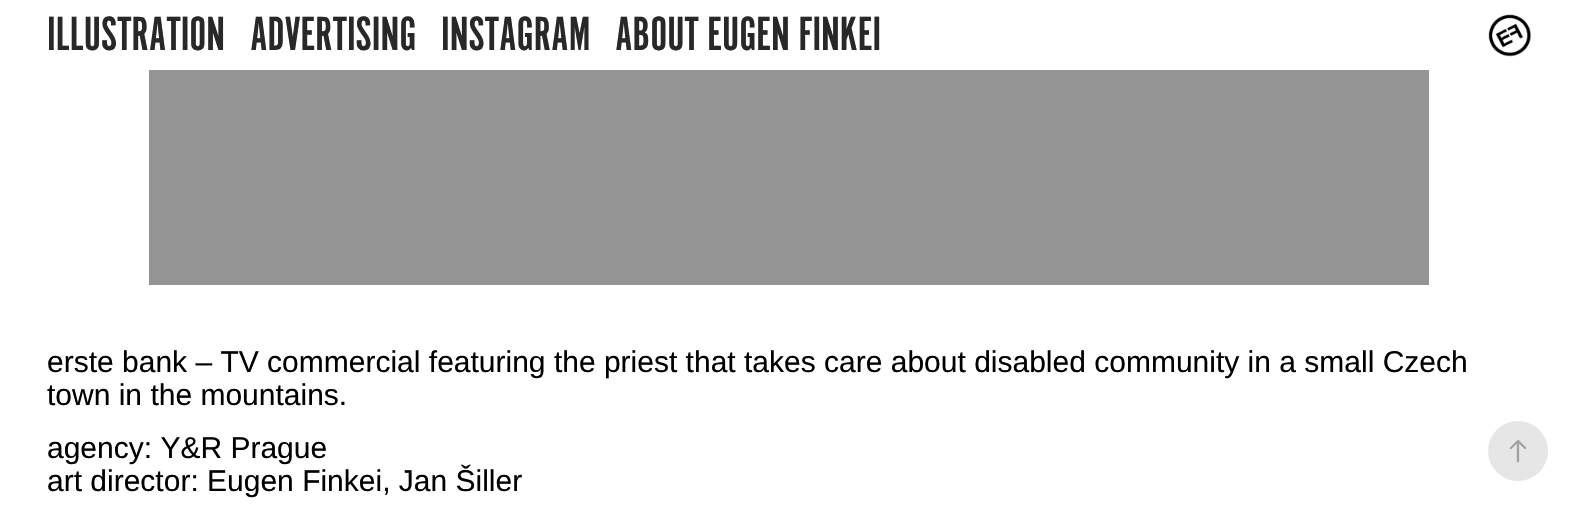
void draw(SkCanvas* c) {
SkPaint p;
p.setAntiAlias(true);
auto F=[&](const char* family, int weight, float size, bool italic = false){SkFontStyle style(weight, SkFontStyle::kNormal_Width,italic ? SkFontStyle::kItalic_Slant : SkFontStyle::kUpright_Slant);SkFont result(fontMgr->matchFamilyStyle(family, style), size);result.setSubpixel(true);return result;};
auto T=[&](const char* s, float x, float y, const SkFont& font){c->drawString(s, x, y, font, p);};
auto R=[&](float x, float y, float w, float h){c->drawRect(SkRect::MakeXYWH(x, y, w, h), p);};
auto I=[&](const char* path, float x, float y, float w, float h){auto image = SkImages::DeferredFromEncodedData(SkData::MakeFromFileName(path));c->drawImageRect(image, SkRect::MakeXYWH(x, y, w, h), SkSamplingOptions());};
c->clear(0xffffffff);
auto f1 = F("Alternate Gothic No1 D",400,50);
p.setColor(0xff282828);
T("ILLUSTRATION",47,50,f1);
T("ADVERTISING",250,50,f1);
T("INSTAGRAM",441,50,f1);
T("ABOUT EUGEN FINKEI",615,50,f1);
I("1.png",1488,14,43,43);
p.setColor(0xff949494);
R(149,70,1280,215);
auto f2 = F("Liberation Sans",400,30);
p.setColor(0xff000000);
T("erste bank – TV commercial featuring the priest that takes care about disabled community in a small Czech",47,372,f2);
T("town in the mountains.",47,405,f2);
T("agency: Y&R Prague",47,458,f2);
T("art director: Eugen Finkei, Jan Šiller",47,491,f2);
p.setColor(0xffe6e6e6);
c->drawCircle(1518,451,30,p);
I("2.png",1509,440,18,23);
}
